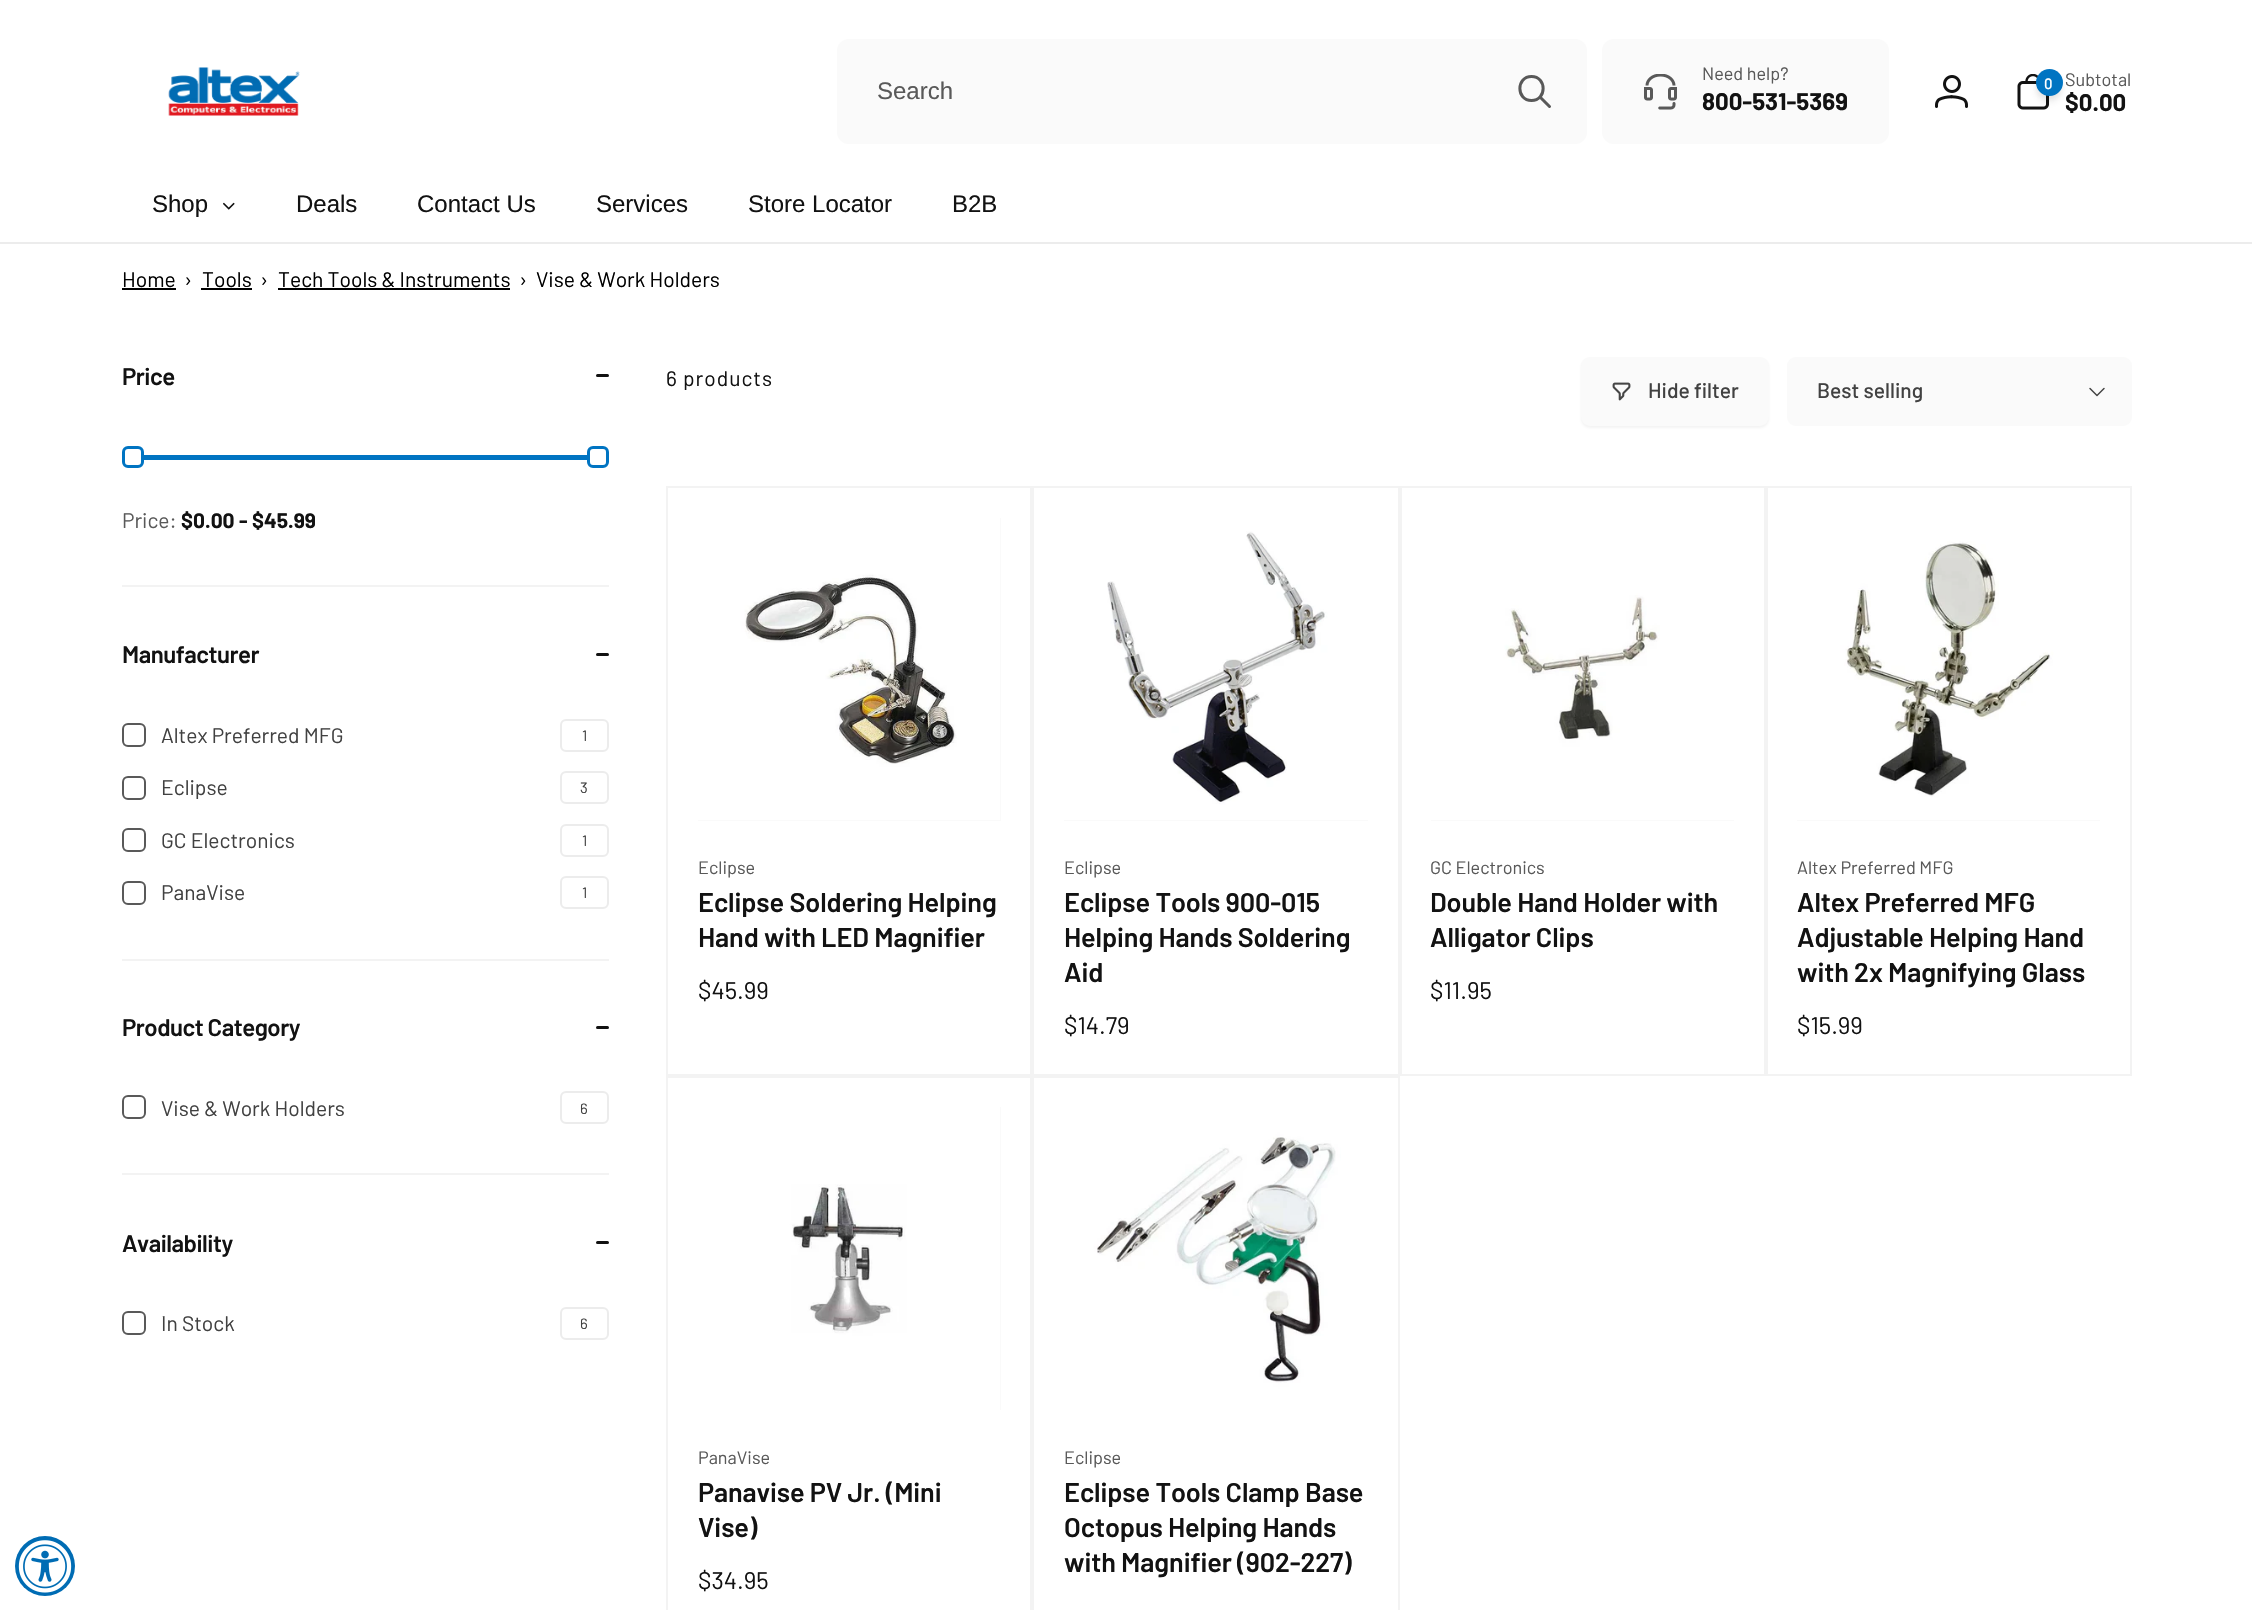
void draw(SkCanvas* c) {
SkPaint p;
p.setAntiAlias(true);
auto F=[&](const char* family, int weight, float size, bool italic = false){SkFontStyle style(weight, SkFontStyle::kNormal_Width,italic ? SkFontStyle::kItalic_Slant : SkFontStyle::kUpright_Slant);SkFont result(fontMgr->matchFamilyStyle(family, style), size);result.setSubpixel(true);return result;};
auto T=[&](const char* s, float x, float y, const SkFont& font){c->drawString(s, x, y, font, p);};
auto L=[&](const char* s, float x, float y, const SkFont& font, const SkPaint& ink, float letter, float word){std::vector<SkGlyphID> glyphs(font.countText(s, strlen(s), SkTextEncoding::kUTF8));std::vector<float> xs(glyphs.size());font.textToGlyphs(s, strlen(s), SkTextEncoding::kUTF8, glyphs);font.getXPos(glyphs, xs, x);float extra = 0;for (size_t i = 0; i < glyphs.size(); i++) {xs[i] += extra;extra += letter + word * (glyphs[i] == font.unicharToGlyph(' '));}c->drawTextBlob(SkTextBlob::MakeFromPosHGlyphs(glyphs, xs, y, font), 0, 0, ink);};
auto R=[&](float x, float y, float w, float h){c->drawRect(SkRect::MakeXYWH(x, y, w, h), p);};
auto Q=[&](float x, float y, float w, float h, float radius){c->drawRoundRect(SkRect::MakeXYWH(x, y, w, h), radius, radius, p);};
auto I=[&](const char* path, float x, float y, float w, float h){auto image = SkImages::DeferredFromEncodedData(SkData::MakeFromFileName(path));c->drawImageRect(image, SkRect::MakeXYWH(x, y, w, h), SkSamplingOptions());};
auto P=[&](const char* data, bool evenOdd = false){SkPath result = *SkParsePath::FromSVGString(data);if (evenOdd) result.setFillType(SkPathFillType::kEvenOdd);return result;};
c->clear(0xffffffff);
p.setColor(0xffececec);
R(0,242,2252,2);
I("1.png",168,67,132,49);
p.setColor(0xfffafafa);
Q(837,39,750,105,12);
auto f1 = F("Liberation Sans",400,24);
p.setColor(0xff595959);
T("Search",877,99,f1);
p.setStroke(true);
p.setStrokeWidth(3);
p.setStrokeCap(SkPaint::kRound_Cap);
p.setStrokeJoin(SkPaint::kRound_Join);
p.setColor(0xff585858);
c->drawPath(P("M1549.5 106.5l-9.5-9.5m-8.5 3.5c15.5 0 15.5-24 0-24c-15.5 0-15.5 24 0 24z"),p);
p.setStroke(false);
p.setColor(0xfffafafa);
Q(1602,39,287,105,12);
I("2.png",1644,74,33,36);
auto f2 = F("Barlow",400,18);
p.setColor(0xff595959);
T("Need help?",1702,80,f2);
auto f3 = F("Barlow",700,24);
p.setColor(0xff121212);
T("800-531-5369",1702,110,f3);
I("3.png",1935,75,33,33);
I("4.png",2017,74,32,36);
p.setColor(0x0f121212);
p.setMaskFilter(SkMaskFilter::MakeBlur(kNormal_SkBlurStyle, 3));
c->drawRoundRect(SkRect::MakeXYWH(2037,74,24,24),12,12,p);
p.setMaskFilter(nullptr);
p.setColor(0x1a121212);
p.setMaskFilter(SkMaskFilter::MakeBlur(kNormal_SkBlurStyle, 4.5));
c->drawRoundRect(SkRect::MakeXYWH(2037,77,24,24),12,12,p);
p.setMaskFilter(nullptr);
p.setColor(0xff0074c2);
c->drawCircle(2049.5,82.5,13.5,p);
auto f4 = F("Barlow",500,15);
p.setColor(0xffffffff);
T("0",2044,89,f4);
p.setColor(0xff595959);
T("Subtotal",2065,86,f2);
p.setColor(0xff121212);
T("$0.00",2065,111,f3);
T("Shop",152,212,f1);
I("5.png",223,202,12,8);
T("Deals",296,212,f1);
T("Contact Us",417,212,f1);
T("Services",596,212,f1);
T("Store Locator",748,212,f1);
T("B2B",952,212,f1);
p.setColor(0xff006cb4);
c->drawCircle(45,1566,30,p);
I("6.png",18,1540,54,53);
auto f5 = F("Barlow",400,21);
p.setColor(0xff000000);
T("Home",122,287,f5);
R(122,288,54,2);
T("›",184,287,f5);
T("Tools",202,287,f5);
R(201,288,51,2);
T("›",260,287,f5);
T("Tech Tools & Instruments",278,287,f5);
R(278,288,232,2);
T("›",519,287,f5);
T("Vise & Work Holders",536,287,f5);
auto f6 = F("Barlow",600,24);
p.setColor(0xff121212);
L("Price",122,385,f6,p,-.5,0);
Q(596,374,13,3,1.5);
p.setStroke(true);
p.setStrokeCap(SkPaint::kButt_Cap);
p.setStrokeJoin(SkPaint::kMiter_Join);
p.setColor(0xff0074c2);
c->drawRoundRect(SkRect::MakeXYWH(123.5,447.5,19,19),4.5,4.5,p);
p.setStroke(false);
R(144,455,443,5);
p.setStroke(true);
c->drawRoundRect(SkRect::MakeXYWH(588.5,447.5,19,19),4.5,4.5,p);
p.setStroke(false);
p.setColor(0xff595959);
T("Price:",122,528,f5);
auto f7 = F("Barlow",700,21);
p.setColor(0xff121212);
T("$0.00",181,528,f7);
T("-",239,528,f7);
T("$45.99",252,528,f7);
p.setColor(0xfff3f3f3);
R(122,585,487,2);
p.setColor(0xff121212);
L("Manufacturer",122,663,f6,p,-.5,0);
Q(596,653,13,3,1.5);
p.setStroke(true);
p.setStrokeWidth(2);
p.setColor(0xff767676);
c->drawRoundRect(SkRect::MakeXYWH(124,726,19,19),2,2,p);
p.setStroke(false);
p.setColor(0xffffffff);
Q(122,723,24,24,6);
p.setStroke(true);
p.setColor(0xb3121212);
c->drawRoundRect(SkRect::MakeXYWH(123,724,22,22),5,5,p);
p.setStroke(false);
p.setColor(0xff414141);
T("Altex Preferred MFG",161,743,f5);
p.setStroke(true);
p.setColor(0xffececec);
c->drawRoundRect(SkRect::MakeXYWH(561,720,47,31),5,5,p);
auto f8 = F("Barlow",400,15);
p.setStroke(false);
p.setColor(0xff414141);
T("1",582,741,f8);
p.setStroke(true);
p.setColor(0xff767676);
c->drawRoundRect(SkRect::MakeXYWH(124,778,19,19),2,2,p);
p.setStroke(false);
p.setColor(0xffffffff);
Q(122,776,24,24,6);
p.setStroke(true);
p.setColor(0xb3121212);
c->drawRoundRect(SkRect::MakeXYWH(123,777,22,22),5,5,p);
p.setStroke(false);
p.setColor(0xff414141);
T("Eclipse",161,795,f5);
p.setStroke(true);
p.setColor(0xffececec);
c->drawRoundRect(SkRect::MakeXYWH(561,772,47,31),5,5,p);
p.setStroke(false);
p.setColor(0xff414141);
T("3",580,793,f8);
p.setStroke(true);
p.setColor(0xff767676);
c->drawRoundRect(SkRect::MakeXYWH(124,831,19,19),2,2,p);
p.setStroke(false);
p.setColor(0xffffffff);
Q(122,828,24,24,6);
p.setStroke(true);
p.setColor(0xb3121212);
c->drawRoundRect(SkRect::MakeXYWH(123,829,22,22),5,5,p);
p.setStroke(false);
p.setColor(0xff414141);
T("GC Electronics",161,848,f5);
p.setStroke(true);
p.setColor(0xffececec);
c->drawRoundRect(SkRect::MakeXYWH(561,825,47,31),5,5,p);
p.setStroke(false);
p.setColor(0xff414141);
T("1",582,846,f8);
p.setStroke(true);
p.setColor(0xff767676);
c->drawRoundRect(SkRect::MakeXYWH(124,883,19,19),2,2,p);
p.setStroke(false);
p.setColor(0xffffffff);
Q(122,881,24,24,6);
p.setStroke(true);
p.setColor(0xb3121212);
c->drawRoundRect(SkRect::MakeXYWH(123,882,22,22),5,5,p);
p.setStroke(false);
p.setColor(0xff414141);
T("PanaVise",161,900,f5);
p.setStroke(true);
p.setColor(0xffececec);
c->drawRoundRect(SkRect::MakeXYWH(561,877,47,31),5,5,p);
p.setStroke(false);
p.setColor(0xff414141);
T("1",582,898,f8);
p.setColor(0xfff3f3f3);
R(122,959,487,2);
p.setColor(0xff121212);
L("Product Category",122,1036,f6,p,-.5,0);
Q(596,1026,13,3,1.5);
p.setStroke(true);
p.setColor(0xff767676);
c->drawRoundRect(SkRect::MakeXYWH(124,1098,19,19),2,2,p);
p.setStroke(false);
p.setColor(0xffffffff);
Q(122,1095,24,24,6);
p.setStroke(true);
p.setColor(0xb3121212);
c->drawRoundRect(SkRect::MakeXYWH(123,1096,22,22),5,5,p);
p.setStroke(false);
p.setColor(0xff414141);
T("Vise & Work Holders",161,1116,f5);
p.setStroke(true);
p.setColor(0xffececec);
c->drawRoundRect(SkRect::MakeXYWH(561,1092,47,31),5,5,p);
p.setStroke(false);
p.setColor(0xff414141);
T("6",580,1114,f8);
p.setColor(0xfff3f3f3);
R(122,1173,487,2);
p.setColor(0xff121212);
L("Availability",122,1252,f6,p,-.5,0);
Q(596,1241,13,3,1.5);
p.setStroke(true);
p.setColor(0xff767676);
c->drawRoundRect(SkRect::MakeXYWH(124,1314,19,19),2,2,p);
p.setStroke(false);
p.setColor(0xffffffff);
Q(122,1311,24,24,6);
p.setStroke(true);
p.setColor(0xb3121212);
c->drawRoundRect(SkRect::MakeXYWH(123,1312,22,22),5,5,p);
p.setStroke(false);
p.setColor(0xff414141);
T("In Stock",161,1331,f5);
p.setStroke(true);
p.setColor(0xffececec);
c->drawRoundRect(SkRect::MakeXYWH(561,1308,47,31),5,5,p);
p.setStroke(false);
p.setColor(0xff414141);
T("6",580,1329,f8);
p.setColor(0xff121212);
L("6 products",666,386,f5,p,1,0);
p.setColor(0x0d121212);
p.setMaskFilter(SkMaskFilter::MakeBlur(kNormal_SkBlurStyle, 1.5));
c->drawRoundRect(SkRect::MakeXYWH(1581,359,188,69),9,9,p);
p.setMaskFilter(nullptr);
p.setColor(0xfffafafa);
Q(1581,357,188,69,9);
I("7.png",1612,382,19,19);
auto f9 = F("Barlow",500,21);
p.setColor(0xff414141);
T("Hide filter",1648,398,f9);
p.setColor(0xfffafafa);
Q(1787,357,345,69,9);
p.setColor(0xff414141);
T("Best selling",1817,398,f9);
p.setStroke(true);
p.setStrokeWidth(1.5);
p.setStrokeCap(SkPaint::kRound_Cap);
p.setStrokeJoin(SkPaint::kRound_Join);
p.setColor(0xff454545);
c->drawPath(P("M2104 388.5l-7 7l-7-7"),p);
p.setStrokeWidth(2);
p.setStrokeCap(SkPaint::kButt_Cap);
p.setStrokeJoin(SkPaint::kMiter_Join);
p.setColor(0xfff3f3f3);
c->drawRect(SkRect::MakeXYWH(667,487,364,588),p);
p.setStroke(false);
p.setColor(0xfffafafa);
R(698,518,303,303);
I("8.png",698,518,302,302);
p.setColor(0xff595959);
T("Eclipse",698,874,f2);
auto f10 = F("Barlow",600,27);
p.setColor(0xff121212);
L("Eclipse Soldering Helping",698,912,f10,p,-.1,0);
L("Hand with LED Magnifier",698,947,f10,p,-.1,0);
auto f11 = F("Barlow",400,24);
T("$45.99",698,999,f11);
p.setStroke(true);
p.setColor(0xfff3f3f3);
c->drawRect(SkRect::MakeXYWH(1033,487,366,588),p);
p.setStroke(false);
p.setColor(0xfffafafa);
R(1064,820,304,1);
I("9.png",1064,518,304,302);
p.setColor(0xff595959);
T("Eclipse",1064,874,f2);
p.setColor(0xff121212);
L("Eclipse Tools 900-015",1064,912,f10,p,-.1,0);
L("Helping Hands Soldering",1064,947,f10,p,-.1,0);
L("Aid",1064,982,f10,p,-.1,0);
T("$14.79",1064,1034,f11);
p.setStroke(true);
p.setColor(0xfff3f3f3);
c->drawRect(SkRect::MakeXYWH(1401,487,364,588),p);
p.setStroke(false);
p.setColor(0xfffafafa);
R(1431,820,303,1);
I("10.png",1431,518,303,302);
p.setColor(0xff595959);
T("GC Electronics",1430,874,f2);
p.setColor(0xff121212);
L("Double Hand Holder with",1430,912,f10,p,-.1,0);
L("Alligator Clips",1430,947,f10,p,-.1,0);
T("$11.95",1430,999,f11);
p.setStroke(true);
p.setColor(0xfff3f3f3);
c->drawRect(SkRect::MakeXYWH(1767,487,364,588),p);
p.setStroke(false);
p.setColor(0xfffafafa);
R(1797,820,303,1);
I("11.png",1797,518,303,302);
p.setColor(0xff595959);
T("Altex Preferred MFG",1797,874,f2);
p.setColor(0xff121212);
L("Altex Preferred MFG",1797,912,f10,p,-.1,0);
L("Adjustable Helping Hand",1797,947,f10,p,-.1,0);
L("with 2x Magnifying Glass",1797,982,f10,p,-.1,0);
T("$15.99",1797,1034,f11);
p.setStroke(true);
p.setColor(0xfff3f3f3);
c->drawRect(SkRect::MakeXYWH(667,1077,364,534),p);
p.setStroke(false);
p.setColor(0xfffafafa);
R(1000,1107,1,303);
I("12.png",698,1107,302,303);
p.setColor(0xff595959);
T("PanaVise",698,1464,f2);
p.setColor(0xff121212);
L("Panavise PV Jr. (Mini",698,1502,f10,p,-.1,0);
L("Vise)",698,1537,f10,p,-.1,0);
T("$34.95",698,1589,f11);
p.setStroke(true);
p.setColor(0xfff3f3f3);
c->drawRect(SkRect::MakeXYWH(1033,1077,366,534),p);
I("13.png",1064,1107,304,303);
p.setStroke(false);
p.setColor(0xff595959);
T("Eclipse",1064,1464,f2);
p.setColor(0xff121212);
L("Eclipse Tools Clamp Base",1064,1502,f10,p,-.1,0);
L("Octopus Helping Hands",1064,1537,f10,p,-.1,0);
L("with Magnifier (902-227)",1064,1572,f10,p,-.1,0);
}
